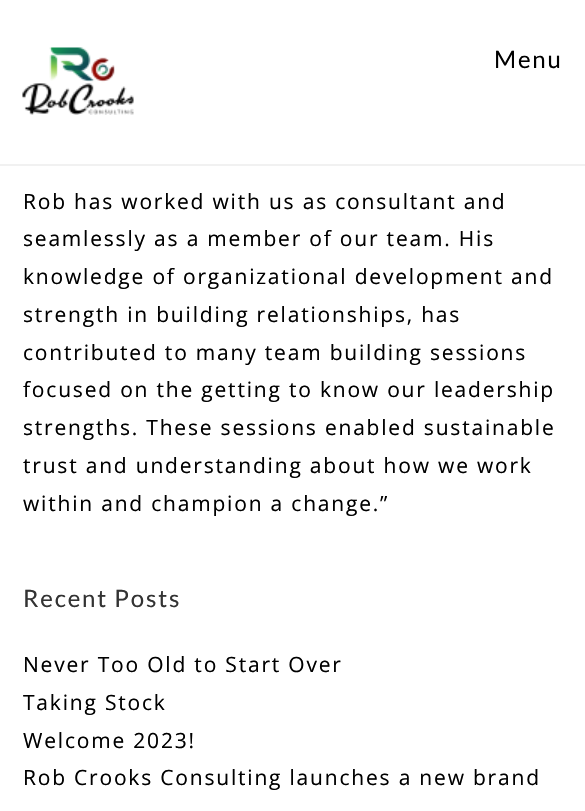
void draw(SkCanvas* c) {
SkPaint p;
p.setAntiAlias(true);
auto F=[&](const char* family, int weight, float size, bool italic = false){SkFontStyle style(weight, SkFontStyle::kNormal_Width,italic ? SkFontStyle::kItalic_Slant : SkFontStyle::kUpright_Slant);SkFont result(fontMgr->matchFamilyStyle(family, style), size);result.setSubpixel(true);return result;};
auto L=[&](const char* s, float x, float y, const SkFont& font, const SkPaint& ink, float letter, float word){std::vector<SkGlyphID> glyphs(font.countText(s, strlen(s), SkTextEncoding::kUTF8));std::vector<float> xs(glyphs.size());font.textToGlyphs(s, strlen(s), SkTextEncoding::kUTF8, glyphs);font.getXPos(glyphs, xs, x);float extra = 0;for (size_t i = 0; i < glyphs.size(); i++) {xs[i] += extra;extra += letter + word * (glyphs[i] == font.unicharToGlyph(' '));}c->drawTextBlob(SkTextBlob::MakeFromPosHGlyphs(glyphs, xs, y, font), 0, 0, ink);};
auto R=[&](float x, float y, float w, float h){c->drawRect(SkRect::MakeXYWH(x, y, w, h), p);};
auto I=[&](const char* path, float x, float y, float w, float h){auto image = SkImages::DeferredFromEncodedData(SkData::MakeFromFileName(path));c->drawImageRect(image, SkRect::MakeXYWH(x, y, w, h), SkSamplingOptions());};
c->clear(0xffffffff);
p.setColor(0xfff1f1f1);
R(0,164,585,2);
I("1.png",22,47,112,68);
auto f1 = F("Lato",400,24);
p.setColor(0xff000000);
L("Menu",494,68,f1,p,1.8,0);
auto f2 = F("Open Sans",400,21);
L("Rob has worked with us as consultant and",23,209,f2,p,1.8,0);
L("seamlessly as a member of our team. His",23,246,f2,p,1.8,0);
L("knowledge of organizational development and",23,284,f2,p,1.8,0);
L("strength in building relationships, has",23,322,f2,p,1.8,0);
L("contributed to many team building sessions",23,360,f2,p,1.8,0);
L("focused on the getting to know our leadership",23,397,f2,p,1.8,0);
L("strengths. These sessions enabled sustainable",23,435,f2,p,1.8,0);
L("trust and understanding about how we work",23,473,f2,p,1.8,0);
L("within and champion a change.”",23,511,f2,p,1.8,0);
p.setColor(0xff333333);
L("Recent Posts",23,607,f1,p,1.8,0);
p.setColor(0xff000000);
L("Never Too Old to Start Over",23,672,f2,p,1.8,0);
L("Taking Stock",23,710,f2,p,1.8,0);
L("Welcome 2023!",23,748,f2,p,1.8,0);
L("Rob Crooks Consulting launches a new brand",23,785,f2,p,1.8,0);
}
